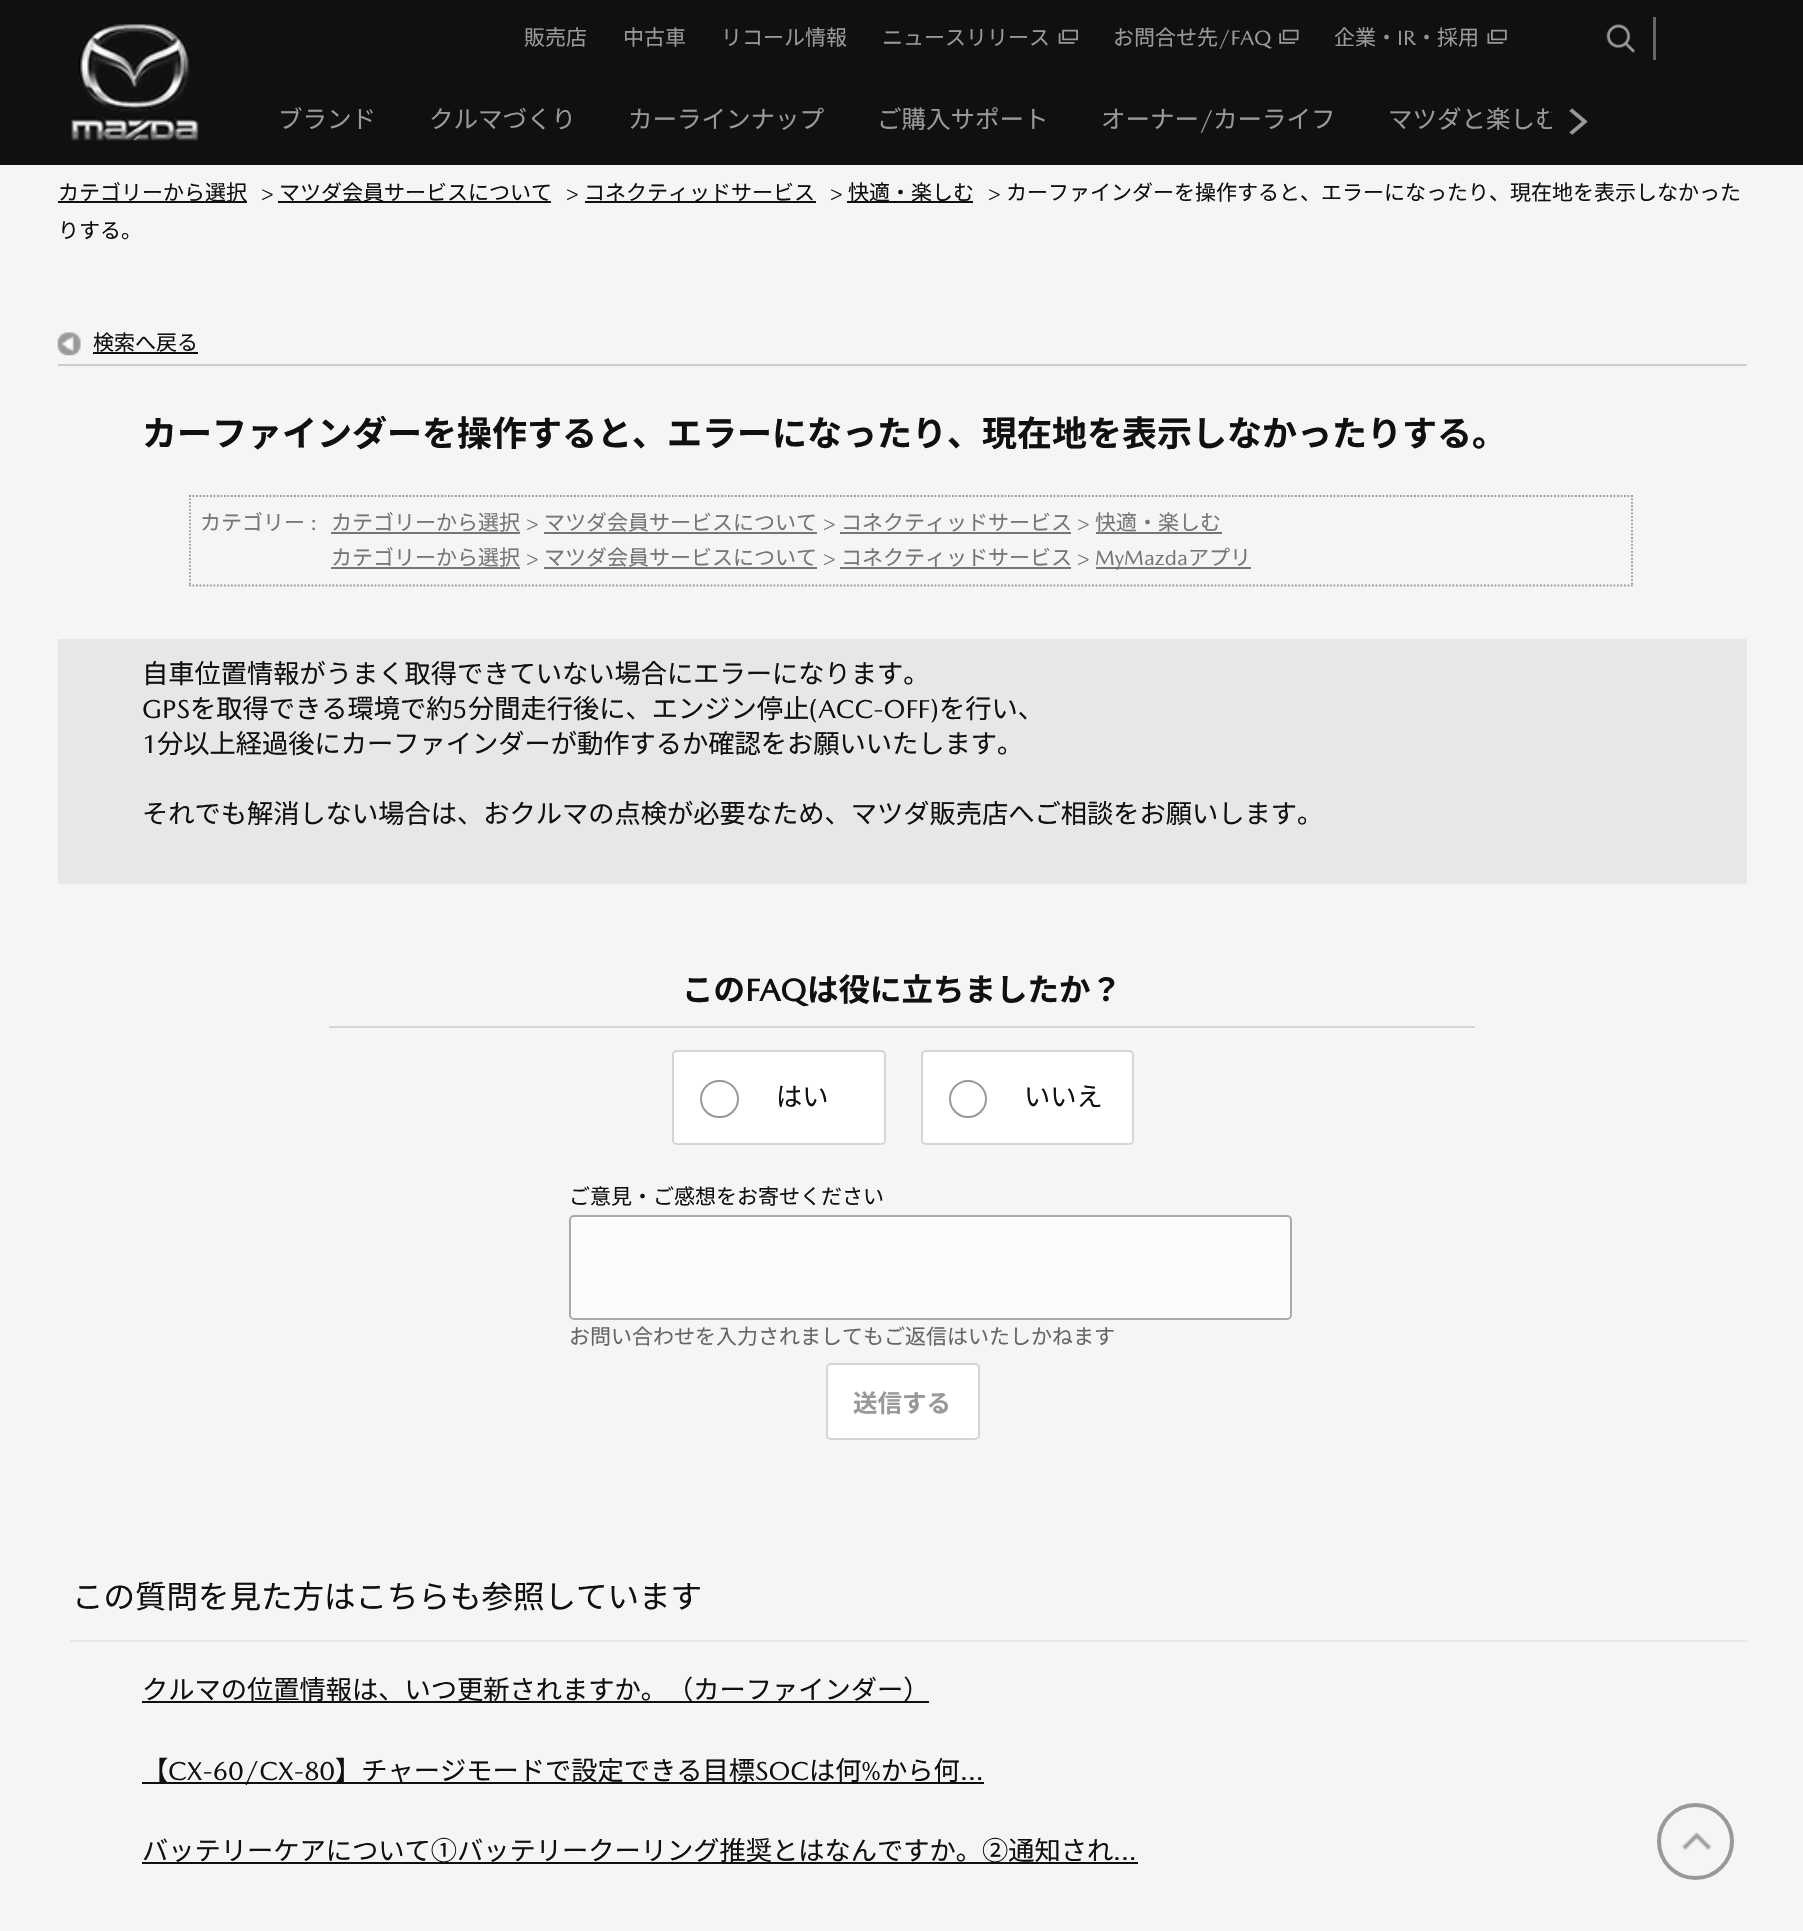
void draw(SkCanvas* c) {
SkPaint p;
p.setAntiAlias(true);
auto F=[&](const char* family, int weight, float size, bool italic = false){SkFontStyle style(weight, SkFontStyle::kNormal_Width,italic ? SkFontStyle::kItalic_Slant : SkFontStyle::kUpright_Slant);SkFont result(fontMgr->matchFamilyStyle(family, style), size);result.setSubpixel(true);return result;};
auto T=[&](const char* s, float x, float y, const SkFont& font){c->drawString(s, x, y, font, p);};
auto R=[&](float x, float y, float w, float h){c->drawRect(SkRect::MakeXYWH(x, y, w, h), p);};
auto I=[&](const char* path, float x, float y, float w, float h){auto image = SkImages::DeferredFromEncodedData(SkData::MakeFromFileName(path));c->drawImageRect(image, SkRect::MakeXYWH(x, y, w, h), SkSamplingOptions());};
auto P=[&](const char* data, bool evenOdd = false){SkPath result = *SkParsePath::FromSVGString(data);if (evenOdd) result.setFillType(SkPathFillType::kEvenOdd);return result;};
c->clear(0xfff5f5f5);
p.setColor(0xff101010);
R(0,0,1803,165);
I("1.png",71,24,128,117);
auto f1 = F("Noto Sans CJK JP",400,21);
p.setColor(0xff999999);
T("販売店",524,45,f1);
T("中古車",623,45,f1);
T("リコール情報",721,45,f1);
T("ニュースリリース",882,45,f1);
I("2.png",1058,29,20,15);
T("お問合せ先",1113,45,f1);
auto f2 = F("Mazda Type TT",400,21);
T("/FAQ",1218,45,f2);
I("3.png",1279,29,20,15);
T("企業・",1334,45,f1);
T("IR",1397,45,f2);
T("・採用",1416,45,f1);
I("4.png",1487,29,20,15);
p.setColor(0xff666666);
R(1653,17,3,43);
I("5.png",1606,24,30,29);
auto f3 = F("Noto Sans CJK JP",400,24.5);
p.setColor(0xff999999);
T("ブランド",278,128,f3);
T("クルマづくり",429,128,f3);
T("カーラインナップ",628,128,f3);
T("ご購入サポート",877,128,f3);
T("オーナー",1101,128,f3);
auto f4 = F("Mazda Type TT",400,24.5);
T("/",1199,128,f4);
T("カーライフ",1213,128,f3);
c->save();
c->clipRect(SkRect::MakeXYWH(252,77,1300,88));
T("マツダと楽しむ",1388,128,f3);
c->restore();
I("6.png",1569,108,19,27);
p.setColor(0xff101010);
R(58,201,189,2);
T("カテゴリーから選択",58,200,f1);
T(">",261,200,f2);
R(278,201,273,2);
T("マツダ会員サービスについて",279,200,f1);
T(">",566,200,f2);
R(585,201,231,2);
T("コネクティッドサービス",584,200,f1);
T(">",830,200,f2);
R(847,201,126,2);
T("快適・楽しむ",848,200,f1);
T(">",988,200,f2);
T("カーファインダーを操作すると、エラーになったり、現在地を表示しなかった",1006,200,f1);
T("りする。",58,238,f1);
p.setColor(0xffcccccc);
R(58,364,1689,2);
I("7.png",57,332,24,24);
p.setColor(0xff101010);
T("検索へ戻る",93,350,f1);
R(93,352,105,2);
auto f5 = F("Noto Sans CJK JP",700,35);
T("カーファインダーを操作すると、エラーになったり、現在地を表示しなかったりする。",142,446,f5);
p.setStroke(true);
p.setStrokeWidth(1.8);
p.setColor(0xff999999);
p.setPathEffect(SkDashPathEffect::Make({{1.75f,1.75f}}, 0));
c->drawPath(P("M189 496h1444"),p);
p.setPathEffect(nullptr);
p.setPathEffect(SkDashPathEffect::Make({{1.75f,1.75f}}, 0));
c->drawPath(P("M1632 495v91"),p);
p.setPathEffect(nullptr);
p.setPathEffect(SkDashPathEffect::Make({{1.75f,1.75f}}, 0));
c->drawPath(P("M189 585.5h1444"),p);
p.setPathEffect(nullptr);
p.setPathEffect(SkDashPathEffect::Make({{1.75f,1.75f}}, 0));
c->drawPath(P("M190 495v91"),p);
p.setPathEffect(nullptr);
p.setStroke(false);
p.setColor(0xff767676);
T("カテゴリー",200,530,f1);
T(":",310,530,f2);
T("カテゴリーから選択",331,530,f1);
R(331,532,189,2);
T(">",526,530,f2);
T("マツダ会員サービスについて",544,530,f1);
R(544,532,273,2);
T(">",823,530,f2);
T("コネクティッドサービス",841,530,f1);
R(840,532,231,2);
T(">",1077,530,f2);
T("快適・楽しむ",1095,530,f1);
R(1096,532,126,2);
T("カテゴリーから選択",331,565,f1);
R(331,567,189,2);
T(">",526,565,f2);
T("マツダ会員サービスについて",544,565,f1);
R(544,567,273,2);
T(">",823,565,f2);
T("コネクティッドサービス",841,565,f1);
R(840,567,231,2);
T(">",1077,565,f2);
R(1096,567,155,2);
T("MyMazda",1095,565,f2);
T("アプリ",1188,565,f1);
p.setColor(0xffe7e7e7);
R(58,639,1689,245);
auto f6 = F("Noto Sans CJK JP",400,26.25);
p.setColor(0xff101010);
T("自車位置情報がうまく取得できていない場合にエラーになります。",142,683,f6);
auto f7 = F("Mazda Type TT",400,26.25);
T("GPS",142,718,f7);
T("を取得できる環境で約",190,718,f6);
T("5",452,718,f7);
T("分間走行後に、エンジン停止",468,718,f6);
T("(ACC-OFF)",809,718,f7);
T("を行い、",939,718,f6);
T("1",142,753,f7);
T("分以上経過後にカーファインダーが動作するか確認をお願いいたします。",157,753,f6);
T("それでも解消しない場合は、おクルマの点検が必要なため、マツダ販売店へご相談をお願いします。",142,823,f6);
auto f8 = F("Noto Sans CJK JP",700,31.5);
T("この",682,1001,f8);
auto f9 = F("Mazda Type TT",700,31.5);
T("FAQ",745,1001,f9);
T("は役に立ちましたか？",807,1001,f8);
p.setColor(0xffd5d5d5);
R(329,1026,1146,2);
p.setColor(0xffffffff);
c->drawRoundRect(SkRect::MakeXYWH(673,1051,212,93),4,4,p);
p.setStroke(true);
p.setStrokeWidth(2);
p.setColor(0xffd5d5d5);
c->drawRoundRect(SkRect::MakeXYWH(673,1051,212,93),4,4,p);
p.setColor(0xff999999);
c->drawRoundRect(SkRect::MakeXYWH(701,1081,37,36),18,18,p);
p.setStroke(false);
p.setColor(0xff101010);
T("はい",776,1106,f6);
p.setColor(0xffffffff);
c->drawRoundRect(SkRect::MakeXYWH(922,1051,211,93),4,4,p);
p.setStroke(true);
p.setColor(0xffd5d5d5);
c->drawRoundRect(SkRect::MakeXYWH(922,1051,211,93),4,4,p);
p.setColor(0xff999999);
c->drawCircle(968,1099,18,p);
p.setStroke(false);
p.setColor(0xff101010);
T("いいえ",1024,1106,f6);
T("ご意見・ご感想をお寄せください",569,1204,f1);
p.setColor(0xfffcfcfc);
c->drawRoundRect(SkRect::MakeXYWH(570,1216,721,103),4,4,p);
p.setStroke(true);
p.setColor(0xffaaaaaa);
c->drawRoundRect(SkRect::MakeXYWH(570,1216,721,103),4,4,p);
p.setStroke(false);
p.setColor(0xff666666);
T("お問い合わせを入力されましてもご返信はいたしかねます",569,1344,f1);
p.setColor(0xffffffff);
c->drawRoundRect(SkRect::MakeXYWH(827,1364,152,75),4,4,p);
p.setStroke(true);
p.setColor(0xffd5d5d5);
c->drawRoundRect(SkRect::MakeXYWH(827,1364,152,75),4,4,p);
auto f10 = F("Noto Sans CJK JP",700,24.5);
p.setStroke(false);
p.setColor(0xff999999);
T("送信する",853,1412,f10);
auto f11 = F("Noto Sans CJK JP",400,31.5);
p.setColor(0xff101010);
T("この質問を見た方はこちらも参照しています",72,1608,f11);
p.setColor(0xffe7e7e7);
R(70,1640,1677,2);
p.setColor(0xff101010);
R(142,1701,787,2);
T("クルマの位置情報は、いつ更新されますか。（カーファインダー）",142,1699,f6);
R(142,1782,842,2);
T("【",142,1780,f6);
T("CX-60/CX-80",168,1780,f7);
T("】チャージモードで設定できる目標",335,1780,f6);
T("SOC",755,1780,f7);
T("は何",809,1780,f6);
T("%",861,1780,f7);
T("から何",881,1780,f6);
T("...",960,1780,f7);
R(142,1862,996,2);
T("バッテリーケアについて①バッテリークーリング推奨とはなんですか。②通知され",142,1860,f6);
T("...",1113,1860,f7);
p.setStroke(true);
p.setStrokeWidth(4);
p.setColor(0xff999999);
c->drawCircle(1695.5,1841.5,36.5,p);
I("8.png",1681,1832,31,19);
}
